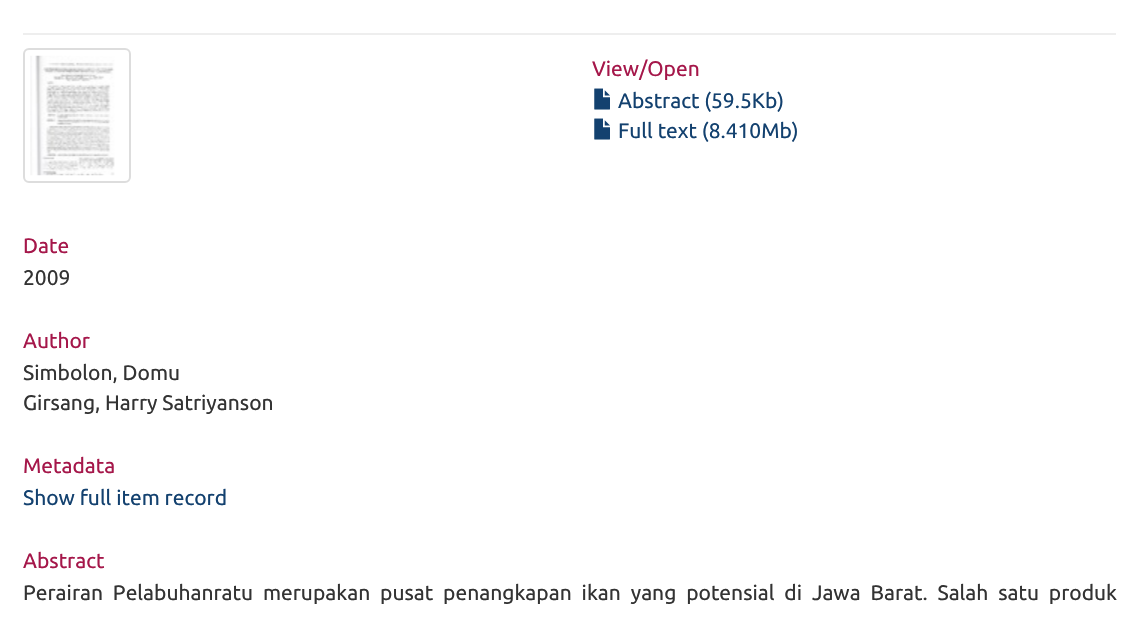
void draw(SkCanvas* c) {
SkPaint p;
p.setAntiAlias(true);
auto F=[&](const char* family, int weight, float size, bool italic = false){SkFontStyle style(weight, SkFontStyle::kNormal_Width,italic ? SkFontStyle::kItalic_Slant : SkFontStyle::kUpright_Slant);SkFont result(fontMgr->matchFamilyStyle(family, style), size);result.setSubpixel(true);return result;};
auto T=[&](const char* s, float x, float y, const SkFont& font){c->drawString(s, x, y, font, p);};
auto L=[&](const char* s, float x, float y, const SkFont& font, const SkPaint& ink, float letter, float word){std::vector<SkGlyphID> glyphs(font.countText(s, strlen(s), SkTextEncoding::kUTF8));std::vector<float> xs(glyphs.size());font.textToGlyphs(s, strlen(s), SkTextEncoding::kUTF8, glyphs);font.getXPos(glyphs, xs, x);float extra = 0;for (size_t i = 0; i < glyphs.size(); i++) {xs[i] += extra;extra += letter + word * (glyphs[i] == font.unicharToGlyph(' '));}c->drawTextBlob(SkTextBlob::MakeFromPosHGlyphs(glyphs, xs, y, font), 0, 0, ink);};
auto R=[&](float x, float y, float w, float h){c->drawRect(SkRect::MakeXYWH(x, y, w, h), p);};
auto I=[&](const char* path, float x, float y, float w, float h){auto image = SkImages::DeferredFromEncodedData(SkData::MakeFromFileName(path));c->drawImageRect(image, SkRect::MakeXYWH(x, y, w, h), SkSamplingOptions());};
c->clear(0xffffffff);
p.setColor(0xffeeeeee);
R(23,33,1093,2);
p.setStroke(true);
p.setStrokeWidth(2);
p.setColor(0xffdddddd);
c->drawRoundRect(SkRect::MakeXYWH(24,49,106,133),5,5,p);
I("1.png",30,55,85,121);
auto f1 = F("Ubuntu",400,21);
p.setStroke(false);
p.setColor(0xffa5174a);
T("View/Open",592,76,f1);
I("2.png",594,88,16,22);
p.setColor(0xff13416f);
T("Abstract (59.5Kb)",618,108,f1);
I("2.png",594,118,16,22);
T("Full text (8.410Mb)",618,138,f1);
p.setColor(0xffa5174a);
T("Date",23,253,f1);
p.setColor(0xff333333);
T("2009",23,285,f1);
p.setColor(0xffa5174a);
T("Author",23,348,f1);
p.setColor(0xff333333);
T("Simbolon, Domu",23,380,f1);
T("Girsang, Harry Satriyanson",23,410,f1);
p.setColor(0xffa5174a);
T("Metadata",23,473,f1);
p.setColor(0xff13416f);
T("Show full item record",23,505,f1);
p.setColor(0xffa5174a);
T("Abstract",23,568,f1);
p.setColor(0xff333333);
L("Perairan Pelabuhanratu merupakan pusat penangkapan ikan yang potensial di Jawa Barat. Salah satu produk",23,600,f1,p,0,5);
}
